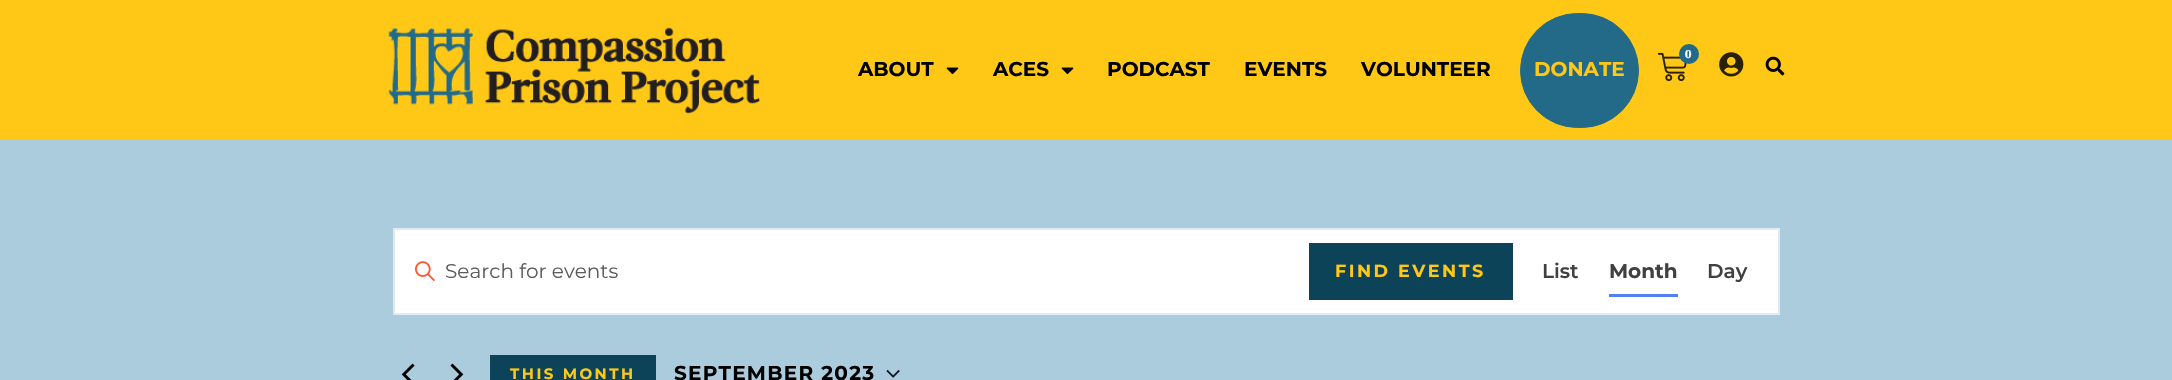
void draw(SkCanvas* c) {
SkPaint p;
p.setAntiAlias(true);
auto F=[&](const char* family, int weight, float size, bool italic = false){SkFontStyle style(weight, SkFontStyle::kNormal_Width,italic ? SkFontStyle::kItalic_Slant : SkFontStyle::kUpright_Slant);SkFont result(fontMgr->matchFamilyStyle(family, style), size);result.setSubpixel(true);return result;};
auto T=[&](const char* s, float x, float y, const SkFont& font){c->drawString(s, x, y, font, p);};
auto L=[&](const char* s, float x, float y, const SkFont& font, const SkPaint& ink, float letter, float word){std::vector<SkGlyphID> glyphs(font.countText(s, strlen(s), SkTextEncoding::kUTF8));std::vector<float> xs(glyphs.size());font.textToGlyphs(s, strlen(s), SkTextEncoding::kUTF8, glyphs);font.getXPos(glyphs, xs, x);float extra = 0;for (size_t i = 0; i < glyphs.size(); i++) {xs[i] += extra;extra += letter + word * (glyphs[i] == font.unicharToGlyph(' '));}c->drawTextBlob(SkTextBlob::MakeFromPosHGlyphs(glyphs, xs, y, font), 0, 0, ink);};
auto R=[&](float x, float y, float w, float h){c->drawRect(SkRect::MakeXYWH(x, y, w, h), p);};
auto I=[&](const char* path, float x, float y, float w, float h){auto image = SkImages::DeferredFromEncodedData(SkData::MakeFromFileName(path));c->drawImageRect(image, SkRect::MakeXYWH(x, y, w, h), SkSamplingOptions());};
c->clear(0xffabccdd);
p.setColor(0xffffc817);
R(0,0,2172,140);
I("1.png",388,27,373,87);
I("2.png",1657,52,30,30);
p.setColor(0xff226a88);
c->drawCircle(1689,54,10,p);
auto f1 = F("DM Serif Display",700,12);
p.setColor(0xffffffff);
L("0",1685,58,f1,p,2.5,0);
I("3.png",1719,52,25,25);
I("4.png",1765,56,20,20);
auto f2 = F("Montserrat",700,20);
p.setColor(0xff000000);
T("ABOUT",858,76,f2);
I("5.png",946,67,13,8);
T("ACES",993,76,f2);
I("5.png",1061,67,13,8);
T("PODCAST",1107,76,f2);
T("EVENTS",1244,76,f2);
T("VOLUNTEER",1361,76,f2);
p.setColor(0xff226a88);
c->drawRoundRect(SkRect::MakeXYWH(1520.5,13.5,118,114),57,57,p);
p.setStroke(true);
p.setStrokeWidth(1);
c->drawRoundRect(SkRect::MakeXYWH(1520.5,13.5,118,114),57,57,p);
p.setStroke(false);
p.setColor(0xffffc817);
T("DONATE",1534,76,f2);
p.setStroke(true);
p.setStrokeWidth(3);
p.setColor(0xffe1eaf0);
c->drawRect(SkRect::MakeXYWH(394.5,229.5,1384,84),p);
p.setStroke(false);
p.setColor(0xffffffff);
R(395,230,1383,83);
I("6.png",415,261,20,20);
auto f3 = F("Montserrat",400,20);
p.setColor(0xff5d5d5d);
T("Search for events",445,278,f3);
p.setColor(0xff0c4358);
R(1309,243,204,57);
auto f4 = F("Montserrat",700,17.5);
p.setColor(0xffffc817);
L("FIND EVENTS",1335,277,f4,p,2.5,0);
auto f5 = F("Montserrat",600,20);
p.setColor(0xff404040);
T("List",1542,278,f5);
T("Month",1609,278,f2);
p.setColor(0xff5280f4);
R(1609,294,69,3);
p.setColor(0xff404040);
T("Day",1707,278,f5);
I("7.png",401,363,14,17);
I("8.png",450,363,14,17);
p.setColor(0xff0c4358);
R(490,355,166,25);
auto f6 = F("Montserrat",700,15);
p.setColor(0xffffc817);
L("THIS MONTH",510,379,f6,p,2.5,0);
p.setColor(0xff000000);
L("SEPTEMBER 2023",674,380,f2,p,1.25,0);
I("9.png",886,369,14,9);
}
